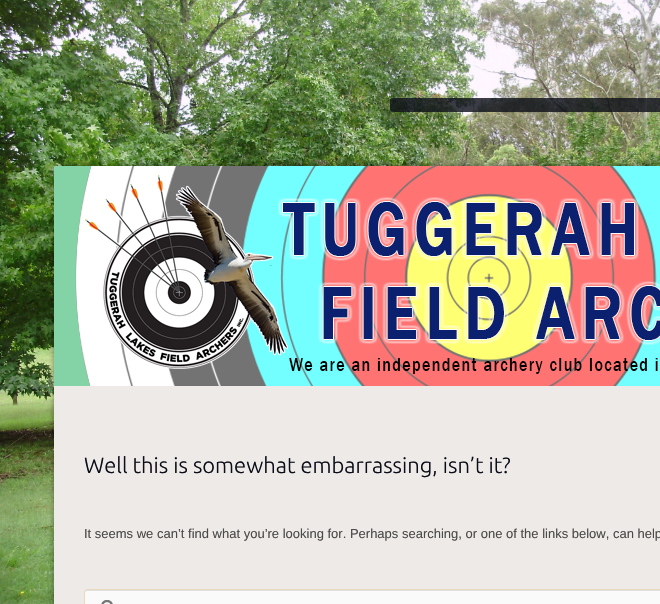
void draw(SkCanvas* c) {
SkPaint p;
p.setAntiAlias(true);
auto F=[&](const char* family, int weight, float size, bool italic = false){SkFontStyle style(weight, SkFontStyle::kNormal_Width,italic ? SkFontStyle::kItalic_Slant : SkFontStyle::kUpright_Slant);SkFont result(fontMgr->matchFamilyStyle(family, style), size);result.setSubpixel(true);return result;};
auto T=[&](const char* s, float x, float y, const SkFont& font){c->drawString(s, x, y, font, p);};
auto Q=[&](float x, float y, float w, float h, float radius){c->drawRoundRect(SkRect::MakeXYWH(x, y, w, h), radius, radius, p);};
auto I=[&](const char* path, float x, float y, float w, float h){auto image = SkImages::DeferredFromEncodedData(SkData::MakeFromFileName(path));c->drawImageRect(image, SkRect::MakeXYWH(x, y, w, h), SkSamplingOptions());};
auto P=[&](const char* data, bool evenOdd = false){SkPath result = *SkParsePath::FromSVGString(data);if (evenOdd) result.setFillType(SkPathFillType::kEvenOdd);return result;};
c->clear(0xffffffff);
I("1.png",0,0,660,604);
p.setColor(0xcc0b0e18);
Q(390,98,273,14,3);
p.setColor(0x66000000);
p.setMaskFilter(SkMaskFilter::MakeBlur(kNormal_SkBlurStyle, 3));
c->drawRoundRect(SkRect::MakeXYWH(54,166,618,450),3,3,p);
p.setMaskFilter(nullptr);
p.setColor(0xffeeeae8);
Q(54,166,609,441,3);
I("2.png",54,166,606,220);
auto f1 = F("Ubuntu",300,22);
p.setColor(0xff0b0e18);
T("Well this is somewhat embarrassing, isn’t it?",84,473,f1);
auto f2 = F("Liberation Sans",400,13);
p.setColor(0xff4a4a49);
T("It seems we can’t find what you’re looking for. Perhaps searching, or one of the links below, can help",84,538,f2);
p.setColor(0xfffafafa);
Q(84,589,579,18,3);
I("3.png",101,600,12,4);
p.setColor(0xffe1e1e1);
c->drawPath(P("M87 591h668c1 0 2 1 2 2c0-1 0-3-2-3h-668c-2 0-2 2-2 3c0-1 1-2 2-2z"),p);
p.setStroke(true);
p.setStrokeWidth(1);
p.setColor(0xffe7d9b9);
c->drawRoundRect(SkRect::MakeXYWH(84.5,589.5,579,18),2.5,2.5,p);
}
